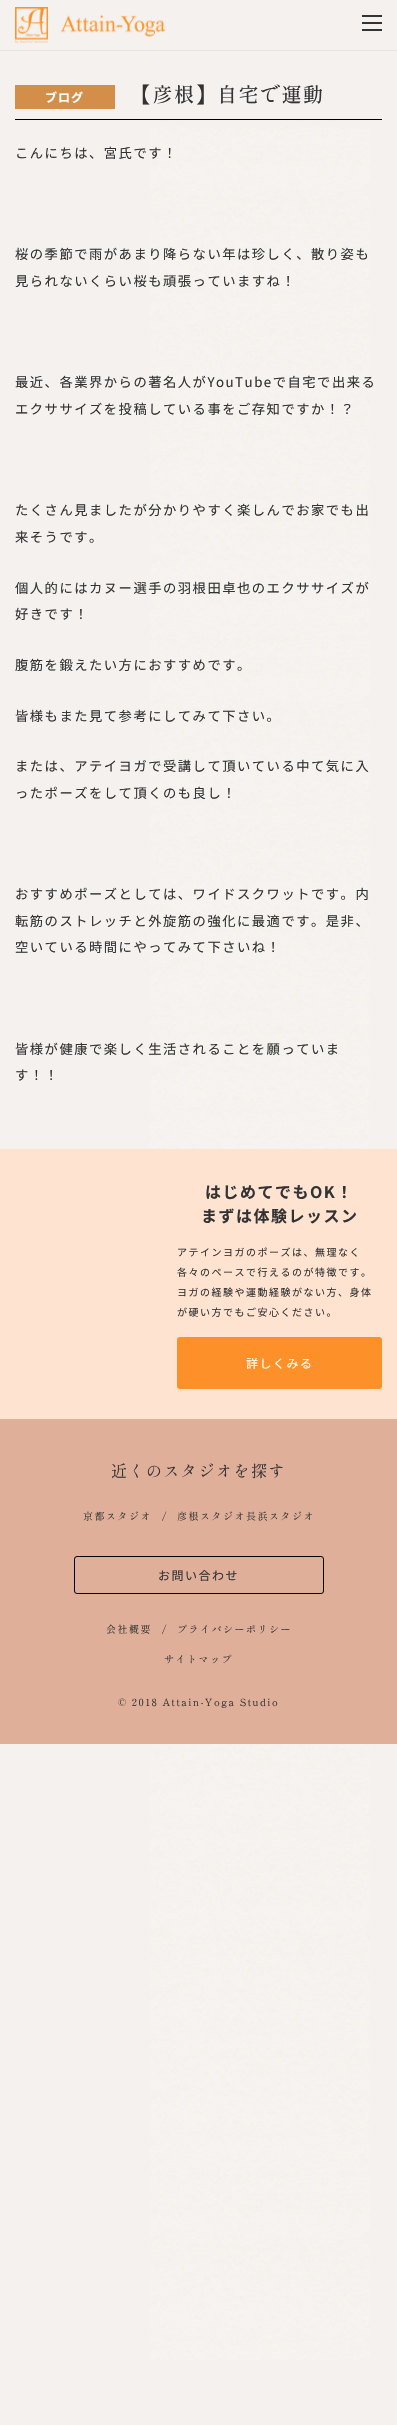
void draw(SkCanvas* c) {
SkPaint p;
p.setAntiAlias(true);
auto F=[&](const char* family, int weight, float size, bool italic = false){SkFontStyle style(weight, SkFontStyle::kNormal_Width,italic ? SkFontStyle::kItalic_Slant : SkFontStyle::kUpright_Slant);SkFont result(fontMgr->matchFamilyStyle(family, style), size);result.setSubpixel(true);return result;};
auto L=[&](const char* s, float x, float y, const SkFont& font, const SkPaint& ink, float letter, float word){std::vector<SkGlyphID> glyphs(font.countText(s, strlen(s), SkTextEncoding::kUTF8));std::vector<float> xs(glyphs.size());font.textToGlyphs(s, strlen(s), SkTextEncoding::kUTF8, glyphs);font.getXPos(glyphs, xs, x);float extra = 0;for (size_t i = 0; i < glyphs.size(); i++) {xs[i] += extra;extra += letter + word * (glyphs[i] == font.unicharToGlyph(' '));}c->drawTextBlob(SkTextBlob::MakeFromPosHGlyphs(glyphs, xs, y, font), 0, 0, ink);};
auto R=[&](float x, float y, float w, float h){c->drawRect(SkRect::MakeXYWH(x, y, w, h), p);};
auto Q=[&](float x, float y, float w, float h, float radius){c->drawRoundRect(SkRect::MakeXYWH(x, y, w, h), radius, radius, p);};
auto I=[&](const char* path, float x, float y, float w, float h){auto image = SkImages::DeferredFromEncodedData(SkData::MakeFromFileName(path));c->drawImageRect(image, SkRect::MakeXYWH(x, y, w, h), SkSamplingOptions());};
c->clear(0xfff5f1ee);
I("1.png",150,127,220,2233);
p.setColor(0xffe4e4e4);
R(0,50,397,1);
I("2.png",15,7,150,36);
p.setColor(0xff333333);
R(362,15,20,2);
R(362,22,20,2);
R(362,29,20,2);
p.setColor(0xff000000);
R(15,119,367,1);
p.setColor(0xffd38e4a);
R(15,85,100,24);
auto f1 = F("Noto Sans JP",700,12);
p.setColor(0xffffffff);
L("ブログ",45,102,f1,p,1,0);
auto f2 = F("Shippori Mincho",500,20);
p.setColor(0xff333333);
L("【彦根】自宅で運動",131,102,f2,p,1.5,0);
auto f3 = F("Noto Sans JP",400,13.3);
L("こんにちは、宮氏です！",15,158,f3,p,1.5,0);
L("桜の季節で雨があまり降らない年は珍しく、散り姿も",15,259,f3,p,1.5,0);
L("見られないくらい桜も頑張っていますね！",15,286,f3,p,1.5,0);
L("最近、各業界からの著名人がYouTubeで自宅で出来る",15,387,f3,p,1.5,0);
L("エクササイズを投稿している事をご存知ですか！？",15,414,f3,p,1.5,0);
L("たくさん見ましたが分かりやすく楽しんでお家でも出",15,515,f3,p,1.5,0);
L("来そうです。",15,542,f3,p,1.5,0);
L("個人的にはカヌー選手の羽根田卓也のエクササイズが",15,593,f3,p,1.5,0);
L("好きです！",15,619,f3,p,1.5,0);
L("腹筋を鍛えたい方におすすめです。",15,670,f3,p,1.5,0);
L("皆様もまた見て参考にしてみて下さい。",15,721,f3,p,1.5,0);
L("または、アテイヨガで受講して頂いている中て気に入",15,771,f3,p,1.5,0);
L("ったポーズをして頂くのも良し！",15,798,f3,p,1.5,0);
L("おすすめポーズとしては、ワイドスクワットです。内",15,899,f3,p,1.5,0);
L("転筋のストレッチと外旋筋の強化に最適です。是非、",15,926,f3,p,1.5,0);
L("空いている時間にやってみて下さいね！",15,952,f3,p,1.5,0);
L("皆様が健康で楽しく生活されることを願っていま",15,1054,f3,p,1.5,0);
L("す！！",15,1080,f3,p,1.5,0);
p.setColor(0xfffde3d0);
R(0,1149,397,270);
auto f4 = F("Noto Sans JP",700,16);
p.setColor(0xff333333);
L("はじめてでもOK！",205,1198,f4,p,1.5,0);
L("まずは体験レッスン",201,1222,f4,p,1.5,0);
auto f5 = F("Noto Sans JP",400,10);
L("アテインヨガのポーズは、無理なく",177,1256,f5,p,1.5,0);
L("各々のペースで行えるのが特徴です。",177,1276,f5,p,1.5,0);
L("ヨガの経験や運動経験がない方、身体",177,1296,f5,p,1.5,0);
L("が硬い方でもご安心ください。",177,1316,f5,p,1.5,0);
p.setColor(0xfffd9028);
Q(177,1337,205,52,3);
auto f6 = F("Noto Sans JP",400,12);
p.setColor(0xffffffff);
L("詳しくみる",246,1368,f6,p,1.5,0);
p.setColor(0xffdfaf9a);
R(0,1419,397,325);
auto f7 = F("Shippori Mincho",400,16);
p.setColor(0xff333333);
L("近くのスタジオを探す",111,1477,f7,p,1.5,0);
auto f8 = F("Shippori Mincho",400,10);
L("京都スタジオ",83,1520,f8,p,1.5,0);
L("/",162,1520,f8,p,1.5,0);
L("彦根スタジオ長浜スタジオ",177,1520,f8,p,1.5,0);
p.setStroke(true);
p.setStrokeWidth(1);
p.setColor(0xff000000);
c->drawRoundRect(SkRect::MakeXYWH(74.5,1556.5,249,37),2.5,2.5,p);
p.setStroke(false);
p.setColor(0xff333333);
L("お問い合わせ",158,1580,f6,p,1.5,0);
L("会社概要",106,1633,f8,p,1.5,0);
L("/",162,1633,f8,p,1.5,0);
L("プライバシーポリシー",177,1633,f8,p,1.5,0);
L("サイトマップ",164,1663,f8,p,1.5,0);
L("© 2018 Attain-Yoga Studio",118,1706,f8,p,1.5,0);
}
